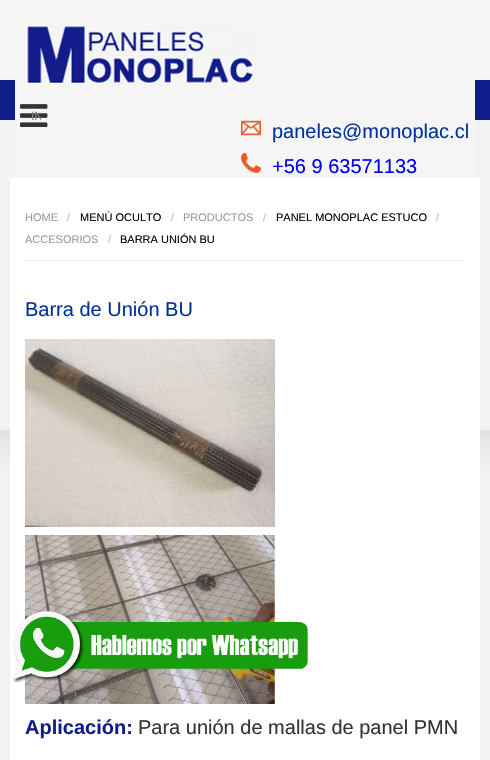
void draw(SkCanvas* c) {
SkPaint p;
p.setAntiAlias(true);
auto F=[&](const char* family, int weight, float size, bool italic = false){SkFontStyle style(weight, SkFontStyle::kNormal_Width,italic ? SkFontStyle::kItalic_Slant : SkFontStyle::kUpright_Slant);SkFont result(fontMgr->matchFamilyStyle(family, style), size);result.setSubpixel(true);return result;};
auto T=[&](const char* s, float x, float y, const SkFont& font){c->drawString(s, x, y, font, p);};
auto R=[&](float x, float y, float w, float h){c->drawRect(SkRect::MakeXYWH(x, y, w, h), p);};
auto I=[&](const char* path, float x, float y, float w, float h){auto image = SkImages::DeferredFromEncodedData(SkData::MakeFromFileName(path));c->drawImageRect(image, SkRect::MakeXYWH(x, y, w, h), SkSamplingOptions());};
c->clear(0xffffffff);
I("1.png",0,0,490,760);
p.setColor(0xfff5f5f5);
R(15,80,460,98);
I("2.png",26,25,228,59);
I("3.png",20,104,28,23);
c->save();
c->clipRect(SkRect::MakeXYWH(31,108,10,16));
auto f1 = F("Liberation Sans",400,12);
p.setColor(0xff888888);
T("IN",31,120,f1);
c->restore();
I("4.png",241,120,20,16);
auto f2 = F("Liberation Sans",400,20);
p.setColor(0xff003399);
T("paneles@monoplac.cl",272,138,f2);
I("5.png",241,153,20,20);
p.setColor(0xff0000ee);
T("+56 9 63571133",272,173,f2);
p.setColor(0xffffffff);
R(10,178,470,582);
p.setColor(0xffeeeeee);
R(25,260,440,1);
auto f3 = F("Liberation Sans",400,11);
p.setColor(0xff999999);
T("HOME",25,221,f3);
p.setColor(0xffc0c0c0);
T("/",67,221,f3);
p.setColor(0xff000000);
T("MENÚ OCULTO",80,221,f3);
p.setColor(0xffc0c0c0);
T("/",171,221,f3);
p.setColor(0xff999999);
T("PRODUCTOS",183,221,f3);
p.setColor(0xffc0c0c0);
T("/",263,221,f3);
p.setColor(0xff000000);
T("PANEL MONOPLAC ESTUCO",276,221,f3);
p.setColor(0xffc0c0c0);
T("/",436,221,f3);
p.setColor(0xff999999);
T("ACCESORIOS",25,243,f3);
p.setColor(0xffc0c0c0);
T("/",108,243,f3);
p.setColor(0xff000000);
T("BARRA UNIÓN BU",120,243,f3);
p.setColor(0xff003399);
T("Barra de Unión BU",25,316,f2);
I("6.png",25,339,250,188);
I("7.png",25,535,250,169);
auto f4 = F("Liberation Sans",700,20);
p.setColor(0xff111d8b);
T("Aplicación:",25,734,f4);
p.setColor(0xff333333);
T("Para unión de mallas de panel PMN",138,734,f2);
I("8.png",12,611,296,72);
}
